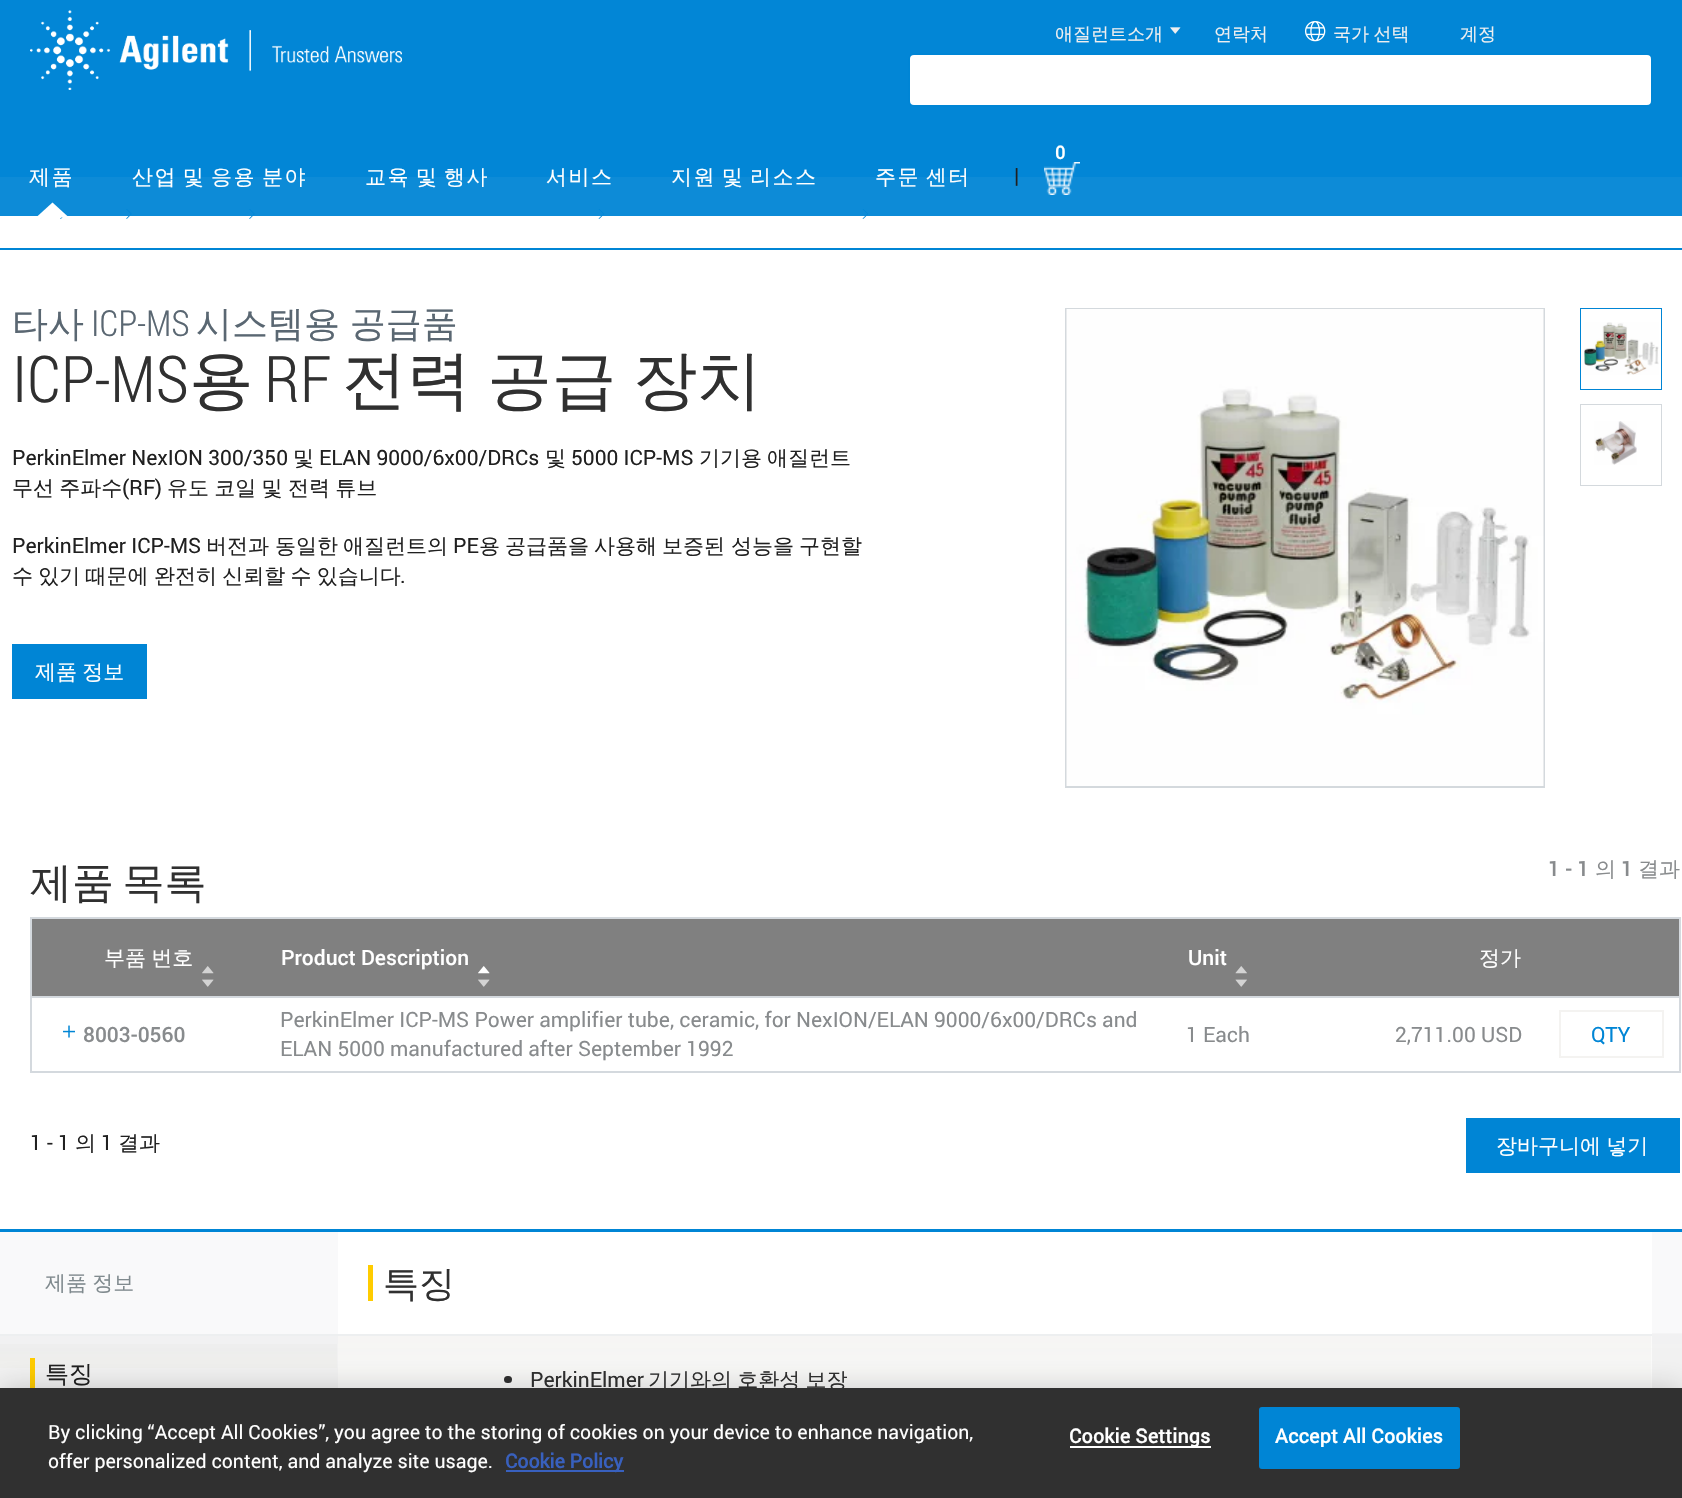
void draw(SkCanvas* c) {
SkPaint p;
p.setAntiAlias(true);
auto F=[&](const char* family, int weight, float size, bool italic = false){SkFontStyle style(weight, SkFontStyle::kNormal_Width,italic ? SkFontStyle::kItalic_Slant : SkFontStyle::kUpright_Slant);SkFont result(fontMgr->matchFamilyStyle(family, style), size);result.setSubpixel(true);return result;};
auto T=[&](const char* s, float x, float y, const SkFont& font){c->drawString(s, x, y, font, p);};
auto L=[&](const char* s, float x, float y, const SkFont& font, const SkPaint& ink, float letter, float word){std::vector<SkGlyphID> glyphs(font.countText(s, strlen(s), SkTextEncoding::kUTF8));std::vector<float> xs(glyphs.size());font.textToGlyphs(s, strlen(s), SkTextEncoding::kUTF8, glyphs);font.getXPos(glyphs, xs, x);float extra = 0;for (size_t i = 0; i < glyphs.size(); i++) {xs[i] += extra;extra += letter + word * (glyphs[i] == font.unicharToGlyph(' '));}c->drawTextBlob(SkTextBlob::MakeFromPosHGlyphs(glyphs, xs, y, font), 0, 0, ink);};
auto R=[&](float x, float y, float w, float h){c->drawRect(SkRect::MakeXYWH(x, y, w, h), p);};
auto Q=[&](float x, float y, float w, float h, float radius){c->drawRoundRect(SkRect::MakeXYWH(x, y, w, h), radius, radius, p);};
auto I=[&](const char* path, float x, float y, float w, float h){auto image = SkImages::DeferredFromEncodedData(SkData::MakeFromFileName(path));c->drawImageRect(image, SkRect::MakeXYWH(x, y, w, h), SkSamplingOptions());};
auto P=[&](const char* data, bool evenOdd = false){SkPath result = *SkParsePath::FromSVGString(data);if (evenOdd) result.setFillType(SkPathFillType::kEvenOdd);return result;};
c->clear(0xffffffff);
p.setColor(0xff1a91d9);
R(0,0,1682,177);
I("5.png",60,209,6,10);
I("5.png",126,209,6,10);
I("5.png",249,209,6,10);
I("6.png",598,209,7,10);
I("6.png",862,209,7,10);
p.setColor(0xf20085d5);
R(0,0,1682,216);
I("1.png",30,10,372,80);
auto f1 = F("WenQuanYi Zen Hei",500,18);
p.setColor(0xffefeff0);
T("애질런트소개",1055,40,f1);
I("2.png",1170,27,11,7);
T("연락처",1214,40,f1);
I("3.png",1305,21,21,21);
L("국가 선택",1333,40,f1,p,0,-1);
T("계정",1460,40,f1);
p.setColor(0xffffffff);
c->drawRoundRect(SkRect::MakeXYWH(909,54,743,52),5,5,p);
p.setStroke(true);
p.setStrokeWidth(2);
p.setColor(0xff0085d5);
c->drawRoundRect(SkRect::MakeXYWH(909,54,743,52),5,5,p);
auto f2 = F("Roboto",700,18);
p.setStroke(false);
p.setColor(0xffffffff);
L("0",1055,159,f2,p,1.5,0);
I("4.png",1044,162,36,33);
auto f3 = F("WenQuanYi Zen Hei",500,21);
L("제품",29,184,f3,p,1.5,0);
c->drawPath(P("M69 217.5h-33l16.5-15z"),p);
L("산업 및 응용 분야",132,184,f3,p,1.5,-2);
L("교육 및 행사",365,184,f3,p,1.5,-2);
L("서비스",546,184,f3,p,1.5,0);
L("지원 및 리소스",671,184,f3,p,1.5,-2);
L("주문 센터",875,184,f3,p,1.5,-2);
auto f4 = F("Roboto",400,21);
p.setColor(0xff202020);
T("|",1014,183,f4);
p.setColor(0xff0085d5);
R(0,248,1682,2);
auto f5 = F("WenQuanYi Zen Hei",500,36);
p.setColor(0xff5a6772);
T("타사",12,336,f5);
auto f6 = F("Roboto Condensed",300,36);
T("ICP-MS",91,336,f6);
L("시스템용 공급품",196,336,f5,p,0,-1);
auto f7 = F("Roboto Condensed",300,64.5);
p.setColor(0xff303030);
T("ICP-MS",12,402,f7);
auto f8 = F("WenQuanYi Zen Hei",500,64.5);
T("용",189,402,f8);
T("RF",264,402,f7);
L("전력 공급 장치",342,402,f8,p,0,-3);
p.setColor(0xff202020);
T("PerkinElmer NexION 300/350",12,465,f4);
T("및",293,465,f3);
T("ELAN 9000/6x00/DRCs",319,465,f4);
T("및",545,465,f3);
T("5000 ICP-MS",571,465,f4);
T("기기용",699,465,f3);
T("애질런트",767,465,f3);
L("무선 주파수",12,495,f3,p,0,-1);
T("(RF)",122,495,f4);
L("유도 코일 및 전력 튜브",167,495,f3,p,0,-1);
T("PerkinElmer ICP-MS",12,553,f4);
T("버전과",206,553,f3);
T("동일한",275,553,f3);
T("애질런트의",343,553,f3);
T("PE",453,553,f4);
T("용",479,553,f3);
T("공급품을",505,553,f3);
T("사용해",594,553,f3);
T("보증된",662,553,f3);
T("성능을",731,553,f3);
T("구현할",799,553,f3);
L("수 있기 때문에 완전히 신뢰할 수 있습니다",12,583,f3,p,0,-1);
T(".",400,583,f4);
p.setColor(0xff0085d5);
R(12,644,135,55);
p.setColor(0xffffffff);
L("제품 정보",35,679,f3,p,0,-1);
p.setStroke(true);
p.setColor(0xffd4d9dd);
c->drawRect(SkRect::MakeXYWH(1066,309,478,478),p);
I("7.png",1066,309,478,477);
p.setColor(0xff0085d5);
c->drawRect(SkRect::MakeXYWH(1581,309,80,80),p);
p.setStroke(false);
p.setColor(0xffffffff);
R(1581,309,80,80);
I("8.png",1584,322,75,53);
p.setStroke(true);
p.setColor(0xffd4d9dd);
c->drawRect(SkRect::MakeXYWH(1581,405,80,80),p);
p.setStroke(false);
p.setColor(0xffffffff);
R(1581,405,80,80);
I("9.png",1594,421,43,44);
auto f9 = F("WenQuanYi Zen Hei",500,42);
p.setColor(0xff303030);
L("제품 목록",30,897,f9,p,0,-4);
auto f10 = F("Roboto",500,21);
p.setColor(0xff888b8d);
T("1 - 1",1548,876,f10);
T("의",1595,876,f3);
T("1",1621,876,f10);
T("결과",1638,876,f3);
p.setColor(0xff808080);
R(32,919,1647,77);
p.setColor(0xffd4d9de);
R(30,917,1650,2);
R(1679,996,2,77);
R(1679,917,2,81);
R(30,1071,1650,2);
R(30,996,2,77);
R(30,996,1650,2);
R(30,917,2,81);
p.setColor(0xffffffff);
L("부품 번호",104,965,f3,p,0,-1);
I("10.png",202,966,12,8);
I("11.png",202,979,12,8);
T("Product Description",281,965,f10);
I("12.png",478,966,12,8);
I("11.png",478,979,12,8);
T("Unit",1188,965,f10);
I("13.png",1235,966,12,8);
I("14.png",1235,979,12,8);
T("정가",1479,965,f3);
I("15.png",63,1025,12,13);
p.setColor(0xff888b8d);
T("8003-0560",83,1042,f10);
T("PerkinElmer ICP-MS Power amplifier tube, ceramic, for NexION/ELAN 9000/6x00/DRCs and",280,1027,f4);
T("ELAN 5000 manufactured after September 1992",280,1056,f4);
T("1 Each",1186,1042,f4);
T("2,711.00 USD",1395,1042,f4);
p.setStroke(true);
p.setColor(0xfff4f3f1);
c->drawRect(SkRect::MakeXYWH(1560,1011,103,46),p);
p.setStroke(false);
p.setColor(0xff0085d5);
T("QTY",1591,1042,f4);
p.setColor(0xff202020);
T("1 - 1",30,1150,f4);
T("의",75,1150,f3);
T("1",101,1150,f4);
T("결과",118,1150,f3);
p.setColor(0xff0085d5);
R(1466,1118,214,55);
p.setColor(0xffffffff);
L("장바구니에 넣기",1496,1153,f3,p,0,-1);
p.setColor(0xfff9f9fa);
R(0,1232,1682,156);
I("16.png",0,1333,1682,55);
p.setColor(0xff0085d5);
R(0,1229,1682,3);
p.setColor(0xfff9f9fa);
R(0,1333,338,1);
p.setColor(0xffffffff);
R(338,1232,1314,156);
p.setColor(0xffedeff0);
R(0,1334,1652,2);
p.setColor(0xff808a8e);
L("제품 정보",45,1290,f3,p,0,-1);
I("17.png",0,1344,337,24);
auto f11 = F("WenQuanYi Zen Hei",500,24);
p.setColor(0xff202020);
T("특징",45,1382,f11);
p.setColor(0xffffcc00);
R(30,1358,5,31);
I("18.png",338,1336,1314,52);
R(368,1265,5,36);
p.setColor(0xff303030);
T("특징",383,1296,f5);
Q(504,1376,8,7,3.5);
T("PerkinElmer",530,1387,f4);
L("기기와의 호환성 보장",648,1387,f3,p,0,-1);
p.setColor(0x33000000);
p.setMaskFilter(SkMaskFilter::MakeBlur(kNormal_SkBlurStyle, 13.5));
c->drawRect(SkRect::MakeXYWH(0,1388,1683,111),p);
p.setMaskFilter(nullptr);
p.setColor(0xff303030);
R(0,1388,1682,110);
auto f12 = F("Roboto",400,19.5);
p.setColor(0xffffffff);
T("By clicking “Accept All Cookies”, you agree to the storing of cookies on your device to enhance navigation,",48,1439,f12);
T("offer personalized content, and analyze site usage.",48,1468,f12);
p.setColor(0xff3860be);
R(506,1470,118,2);
auto f13 = F("Roboto",700,19.5);
T("Cookie Policy",505,1468,f13);
p.setColor(0xffffffff);
R(1070,1446,141,2);
L("Cookie Settings",1069,1443,f13,p,.25,0);
p.setColor(0xff0085d5);
c->drawRoundRect(SkRect::MakeXYWH(1260,1408,199,60),2,2,p);
p.setStroke(true);
c->drawRoundRect(SkRect::MakeXYWH(1260,1408,199,60),2,2,p);
p.setStroke(false);
p.setColor(0xffffffff);
L("Accept All Cookies",1275,1443,f13,p,.25,0);
}
